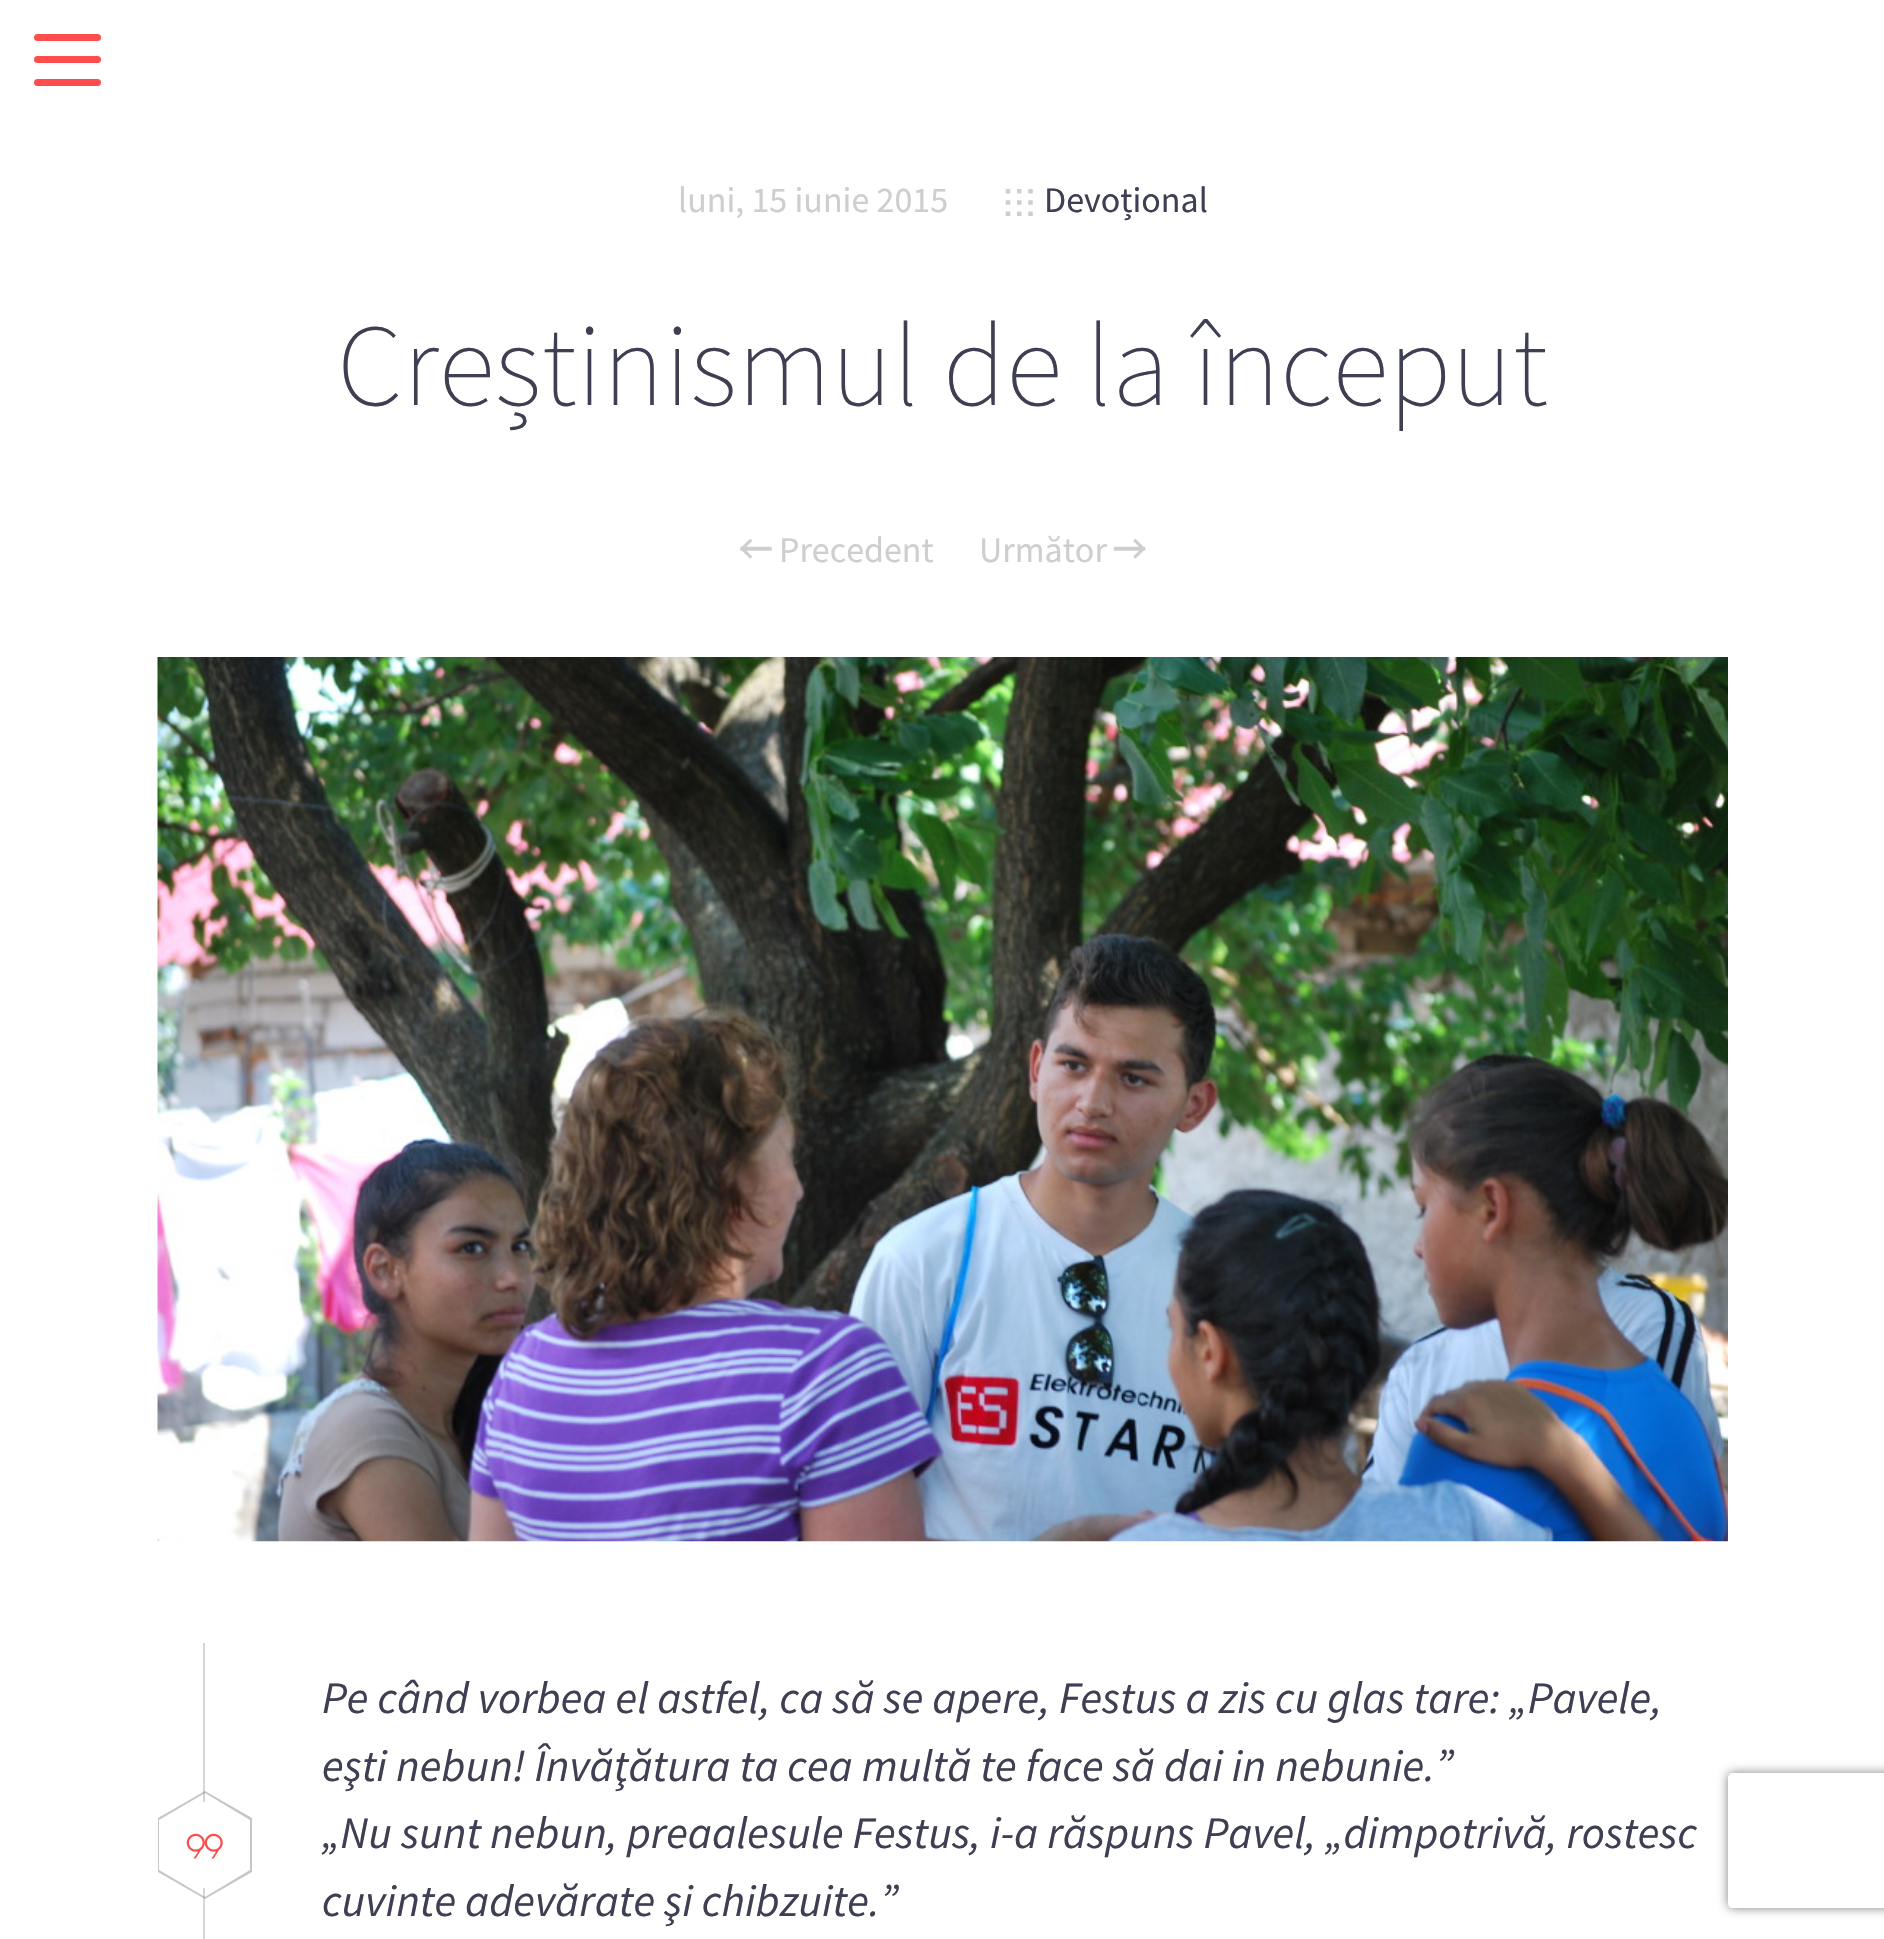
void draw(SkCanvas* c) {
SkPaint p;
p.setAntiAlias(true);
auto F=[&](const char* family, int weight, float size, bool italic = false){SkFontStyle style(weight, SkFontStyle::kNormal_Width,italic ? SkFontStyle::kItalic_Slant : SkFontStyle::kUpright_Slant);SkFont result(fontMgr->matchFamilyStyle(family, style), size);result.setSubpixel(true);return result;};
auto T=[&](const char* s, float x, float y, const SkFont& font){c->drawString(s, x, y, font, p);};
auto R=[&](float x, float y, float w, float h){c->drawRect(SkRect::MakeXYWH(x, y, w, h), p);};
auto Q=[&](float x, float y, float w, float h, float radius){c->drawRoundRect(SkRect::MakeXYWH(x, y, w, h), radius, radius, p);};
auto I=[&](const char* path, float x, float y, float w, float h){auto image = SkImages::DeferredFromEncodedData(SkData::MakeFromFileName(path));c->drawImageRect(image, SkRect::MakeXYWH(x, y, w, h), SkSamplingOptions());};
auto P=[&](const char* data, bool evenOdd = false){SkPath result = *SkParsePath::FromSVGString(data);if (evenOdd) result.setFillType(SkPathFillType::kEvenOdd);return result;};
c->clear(0xffffffff);
p.setColor(0xffff4d4d);
Q(34,56,67,7,3.5);
Q(34,34,67,7,3.5);
Q(34,79,67,7,3.5);
auto f1 = F("Source Sans Pro",400,36);
p.setColor(0xffcecece);
T("luni, 15 iunie 2015",678,212,f1);
I("1.png",1005,189,28,27);
p.setColor(0xff3f3f53);
T("Devoțional",1044,212,f1);
auto f2 = F("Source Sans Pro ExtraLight",200,117);
T("Creștinismul de la început",337,405,f2);
I("2.png",740,539,32,20);
p.setColor(0xffcecece);
T("Precedent",779,562,f1);
T("Următor",979,562,f1);
I("3.png",1113,538,33,21);
I("4.png",157,657,1571,885);
p.setColor(0xffd6d6d6);
R(203,1643,2,159);
auto f3 = F("Source Sans Pro",400,45,true);
p.setColor(0xff3f3f53);
T("Pe când vorbea el astfel, ca să se apere, Festus a zis cu glas tare: „Pavele,",322,1713,f3);
T("eşti nebun! Învăţătura ta cea multă te face să dai in nebunie.”",322,1781,f3);
I("5.png",186,1833,37,26);
p.setColor(0x4d3f3f53);
c->drawPath(P("M205 1793l45 27v50l-45 27l-46-27v-50zm0-2l-47 27v54l47 27l47-27v-54z"),p);
p.setColor(0xff3f3f53);
T("„Nu sunt nebun, preaalesule Festus, i-a răspuns Pavel, „dimpotrivă, rostesc",322,1848,f3);
T("cuvinte adevărate şi chibzuite.”",322,1916,f3);
p.setColor(0x4d777777);
R(203,1888,2,51);
c->save();
c->clipPath(P("M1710 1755h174v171h-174zm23 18h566c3 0 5 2 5 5v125c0 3-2 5-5 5h-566c-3 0-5-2-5-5v-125c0-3 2-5 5-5z",true),true);
p.setColor(0xff808080);
p.setMaskFilter(SkMaskFilter::MakeBlur(kNormal_SkBlurStyle, 5.5));
c->drawRoundRect(SkRect::MakeXYWH(1728,1773,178,135),5,5,p);
p.setMaskFilter(nullptr);
c->restore();
}
